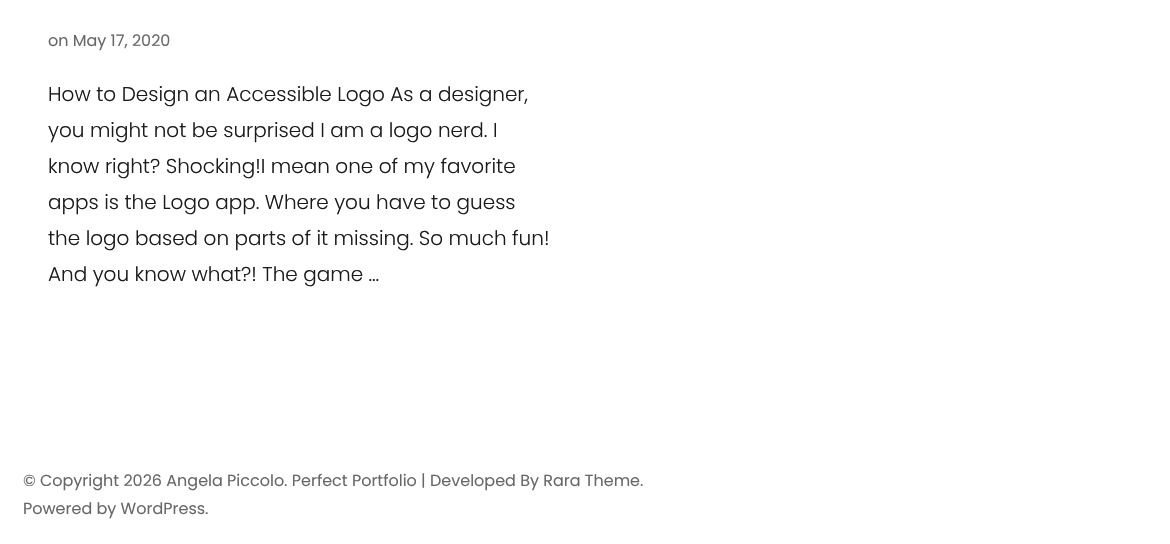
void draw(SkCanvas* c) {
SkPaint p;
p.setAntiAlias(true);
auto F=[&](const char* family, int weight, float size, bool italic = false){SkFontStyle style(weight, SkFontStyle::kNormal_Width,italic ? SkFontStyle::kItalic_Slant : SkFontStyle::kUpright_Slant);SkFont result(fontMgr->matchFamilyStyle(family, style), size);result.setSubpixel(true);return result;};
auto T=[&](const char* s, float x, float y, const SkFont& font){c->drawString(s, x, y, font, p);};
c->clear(0xffffffff);
auto f1 = F("Poppins",400,16);
p.setColor(0xff676767);
T("on May 17, 2020",48,46,f1);
auto f2 = F("Poppins",300,20);
p.setColor(0xff1c1b1b);
T("How to Design an Accessible Logo As a designer,",48,101,f2);
T("you might not be surprised I am a logo nerd. I",48,137,f2);
T("know right? Shocking!I mean one of my favorite",48,173,f2);
T("apps is the Logo app. Where you have to guess",48,209,f2);
T("the logo based on parts of it missing. So much fun!",48,245,f2);
T("And you know what?! The game …",48,281,f2);
p.setColor(0xff676767);
T("© Copyright 2026 Angela Piccolo. Perfect Portfolio | Developed By Rara Theme.",23,486,f1);
T("Powered by WordPress.",23,514,f1);
}
